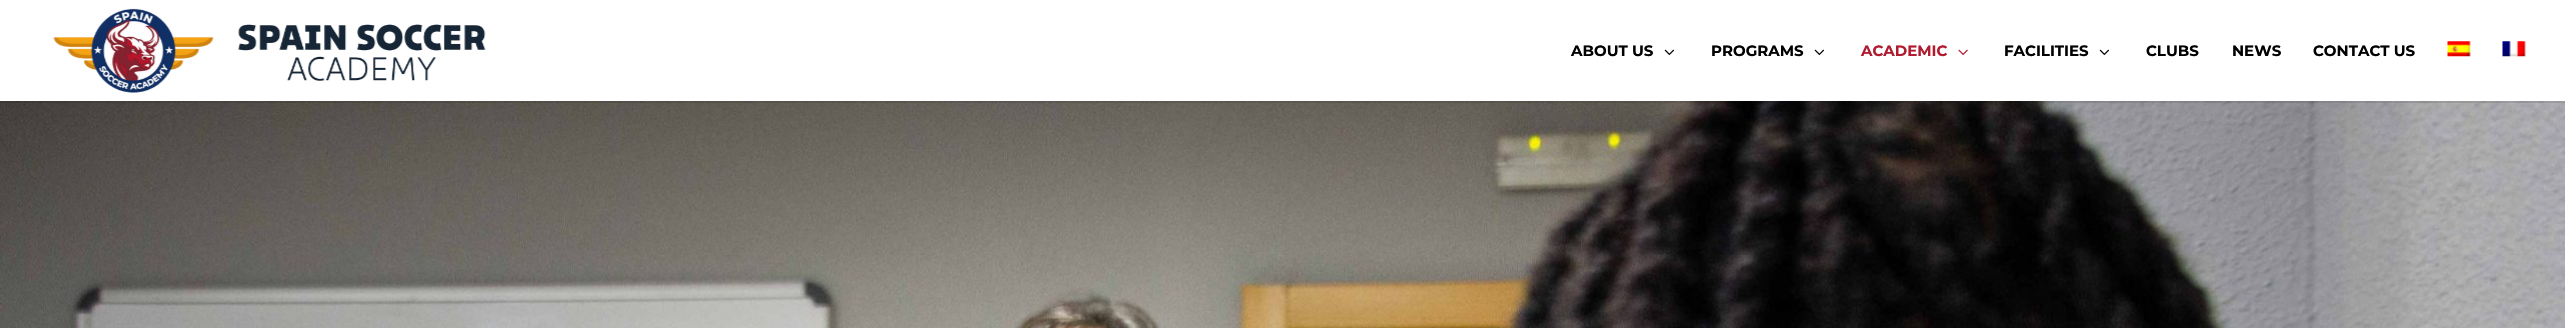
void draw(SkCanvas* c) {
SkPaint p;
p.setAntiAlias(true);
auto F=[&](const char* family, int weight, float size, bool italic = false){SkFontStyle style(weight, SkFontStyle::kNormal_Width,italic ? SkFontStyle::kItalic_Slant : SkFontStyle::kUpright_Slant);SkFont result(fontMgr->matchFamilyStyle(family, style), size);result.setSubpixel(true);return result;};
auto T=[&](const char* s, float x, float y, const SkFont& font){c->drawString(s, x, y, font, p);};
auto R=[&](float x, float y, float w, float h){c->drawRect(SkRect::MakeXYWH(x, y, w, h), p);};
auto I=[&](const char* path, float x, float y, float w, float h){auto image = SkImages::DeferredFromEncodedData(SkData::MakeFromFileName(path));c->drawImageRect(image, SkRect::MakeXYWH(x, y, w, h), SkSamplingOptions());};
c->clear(0xffffffff);
I("6.png",0,101,2565,227);
p.setColor(0x1a000000);
R(0,101,2565,2);
I("1.png",53,8,433,85);
auto f1 = F("Montserrat",700,15);
p.setColor(0xff000000);
T("ABOUT US",1571,56,f1);
I("2.png",1664,49,10,6);
T("PROGRAMS",1711,56,f1);
I("2.png",1814,49,10,6);
p.setColor(0xffb01b2f);
T("ACADEMIC",1861,56,f1);
I("3.png",1958,49,10,6);
p.setColor(0xff000000);
T("FACILITIES",2004,56,f1);
I("2.png",2099,49,10,6);
T("CLUBS",2146,56,f1);
T("NEWS",2232,56,f1);
T("CONTACT US",2313,56,f1);
I("4.png",2447,41,24,16);
I("5.png",2502,41,24,16);
}
